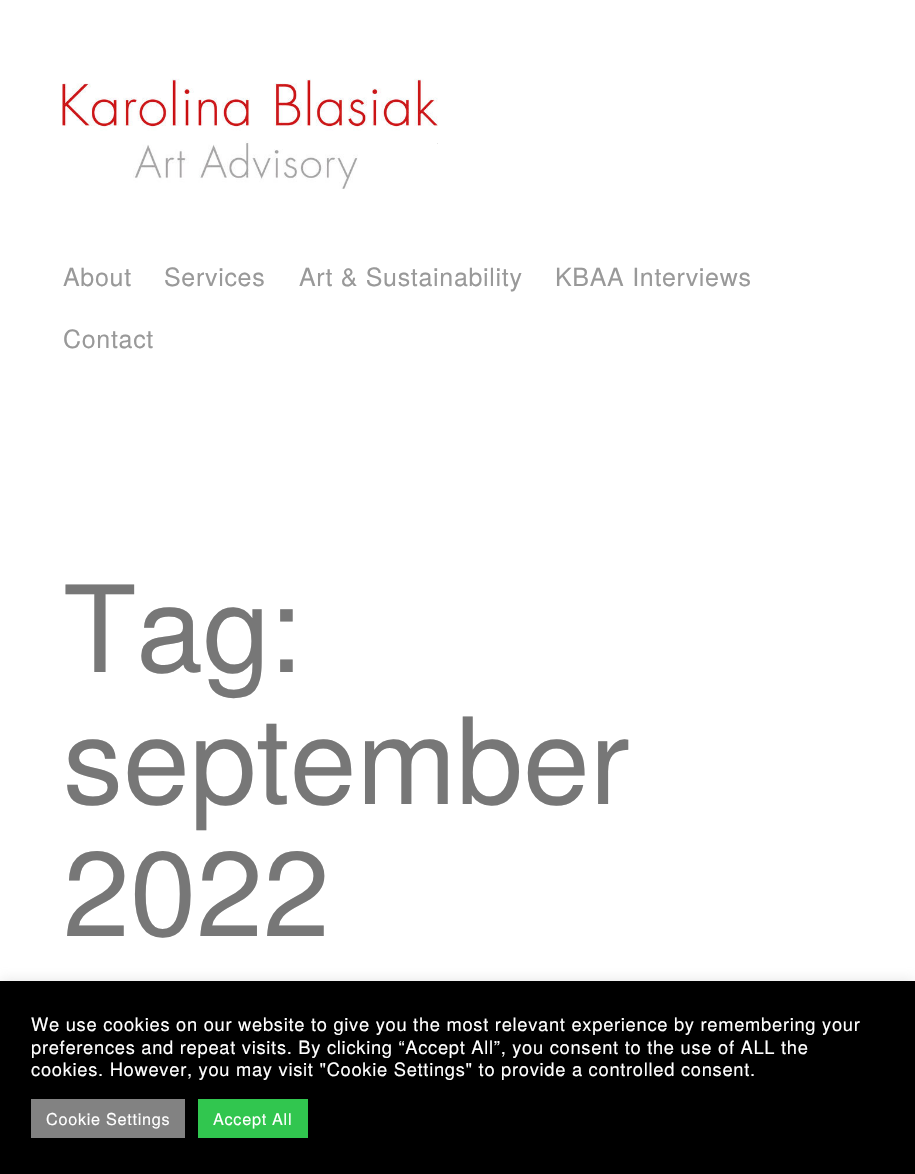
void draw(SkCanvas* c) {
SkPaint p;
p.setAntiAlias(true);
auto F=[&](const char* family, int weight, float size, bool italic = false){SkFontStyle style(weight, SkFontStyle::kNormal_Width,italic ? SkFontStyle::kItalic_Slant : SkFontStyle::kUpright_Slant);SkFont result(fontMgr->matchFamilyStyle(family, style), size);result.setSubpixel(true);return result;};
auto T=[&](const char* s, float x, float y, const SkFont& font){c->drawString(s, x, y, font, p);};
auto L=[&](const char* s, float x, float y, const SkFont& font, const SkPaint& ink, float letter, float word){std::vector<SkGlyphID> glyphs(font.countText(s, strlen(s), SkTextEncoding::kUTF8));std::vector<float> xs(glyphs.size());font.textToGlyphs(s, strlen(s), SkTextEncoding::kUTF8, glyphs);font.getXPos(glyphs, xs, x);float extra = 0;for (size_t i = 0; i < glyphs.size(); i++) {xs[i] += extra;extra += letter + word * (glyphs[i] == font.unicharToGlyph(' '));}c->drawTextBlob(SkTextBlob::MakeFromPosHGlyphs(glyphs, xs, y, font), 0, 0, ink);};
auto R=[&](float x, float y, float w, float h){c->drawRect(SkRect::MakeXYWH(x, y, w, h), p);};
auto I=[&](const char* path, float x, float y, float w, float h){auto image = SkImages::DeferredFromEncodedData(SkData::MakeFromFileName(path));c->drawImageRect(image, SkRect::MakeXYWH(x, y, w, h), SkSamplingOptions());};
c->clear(0xffffffff);
p.setColor(0xffcccccc);
R(437,143,1,1);
I("1.png",62,78,376,111);
auto f1 = F("TeX Gyre Heros",400,25);
p.setColor(0xff999999);
L("About",63,286,f1,p,.7,0);
L("Services",164,286,f1,p,.7,0);
L("Art & Sustainability",299,286,f1,p,.7,0);
L("KBAA Interviews",555,286,f1,p,.7,0);
L("Contact",63,348,f1,p,.7,0);
auto f2 = F("TeX Gyre Heros",400,120);
p.setColor(0xff777777);
T("Tag:",63,672,f2);
T("september",63,804,f2);
T("2022",63,936,f2);
p.setColor(0x4dacabab);
p.setMaskFilter(SkMaskFilter::MakeBlur(kNormal_SkBlurStyle, 6));
c->drawRect(SkRect::MakeXYWH(0,980,915,194),p);
p.setMaskFilter(nullptr);
p.setColor(0xff000000);
R(0,981,915,193);
auto f3 = F("TeX Gyre Heros",400,18.35);
p.setColor(0xffffffff);
L("We use cookies on our website to give you the most relevant experience by remembering your",31,1031,f3,p,.7,0);
L("preferences and repeat visits. By clicking “Accept All”, you consent to the use of ALL the",31,1054,f3,p,.7,0);
L("cookies. However, you may visit \"Cookie Settings\" to provide a controlled consent.",31,1076,f3,p,.7,0);
p.setColor(0xff828282);
R(31,1099,154,39);
auto f4 = F("TeX Gyre Heros",400,16.25);
p.setColor(0xffffffff);
L("Cookie Settings",46,1125,f4,p,.7,0);
p.setColor(0xff31c64f);
R(198,1099,110,39);
p.setColor(0xffffffff);
L("Accept All",213,1125,f4,p,.7,0);
}
